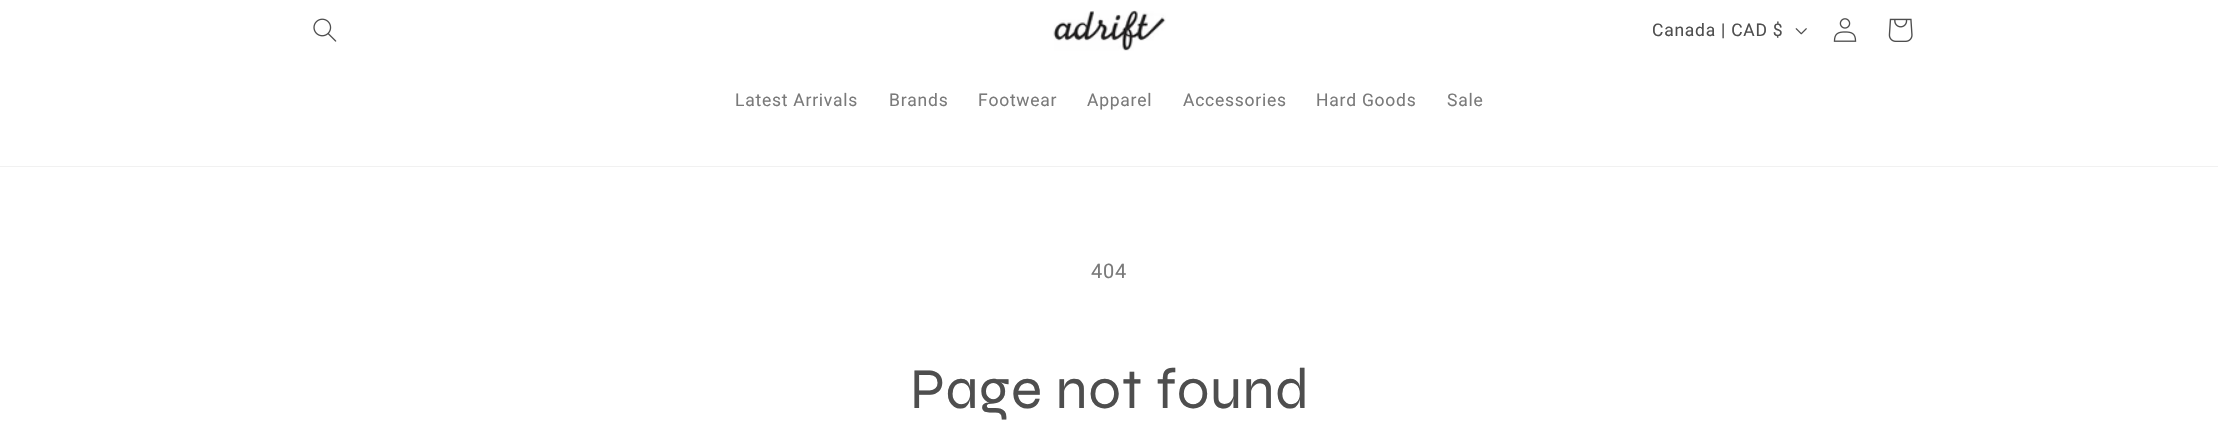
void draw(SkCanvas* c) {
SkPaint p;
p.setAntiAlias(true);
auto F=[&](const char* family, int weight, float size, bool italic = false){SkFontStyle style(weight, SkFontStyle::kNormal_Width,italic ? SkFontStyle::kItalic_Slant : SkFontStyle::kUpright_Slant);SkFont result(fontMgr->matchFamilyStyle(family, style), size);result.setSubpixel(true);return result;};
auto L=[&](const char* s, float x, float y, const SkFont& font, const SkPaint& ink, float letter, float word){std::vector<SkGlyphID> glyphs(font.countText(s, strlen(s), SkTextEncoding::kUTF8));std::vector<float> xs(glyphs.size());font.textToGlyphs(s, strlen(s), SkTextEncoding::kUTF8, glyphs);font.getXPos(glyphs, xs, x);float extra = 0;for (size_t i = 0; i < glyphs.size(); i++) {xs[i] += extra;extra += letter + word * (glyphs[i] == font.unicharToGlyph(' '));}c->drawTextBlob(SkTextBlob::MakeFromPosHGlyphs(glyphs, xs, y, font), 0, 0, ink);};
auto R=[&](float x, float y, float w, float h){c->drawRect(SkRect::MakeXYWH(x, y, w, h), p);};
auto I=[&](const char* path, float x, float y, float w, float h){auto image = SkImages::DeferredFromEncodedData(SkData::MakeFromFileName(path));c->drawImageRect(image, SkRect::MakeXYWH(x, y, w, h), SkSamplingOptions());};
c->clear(0xffffffff);
p.setColor(0xfff1f1f1);
R(0,166,2218,1);
I("1.png",313,18,24,24);
I("2.png",1053,10,113,41);
auto f1 = F("Roboto",400,17.5);
p.setColor(0xff4e4e4e);
L("Canada | CAD $",1652,36,f1,p,.75,0);
I("3.png",1795,28,12,7);
I("4.png",1833,18,24,24);
I("5.png",1888,18,25,24);
p.setColor(0xff7a7a7a);
L("Latest Arrivals",735,106,f1,p,.75,0);
L("Brands",889,106,f1,p,.75,0);
L("Footwear",978,106,f1,p,.75,0);
L("Apparel",1087,106,f1,p,.75,0);
L("Accessories",1183,106,f1,p,.75,0);
L("Hard Goods",1316,106,f1,p,.75,0);
L("Sale",1447,106,f1,p,.75,0);
auto f2 = F("Roboto",400,20);
L("404",1091,278,f2,p,.75,0);
auto f3 = F("Syne",400,57.5);
p.setColor(0xff4e4e4e);
L("Page not found",910,408,f3,p,.9,0);
}
